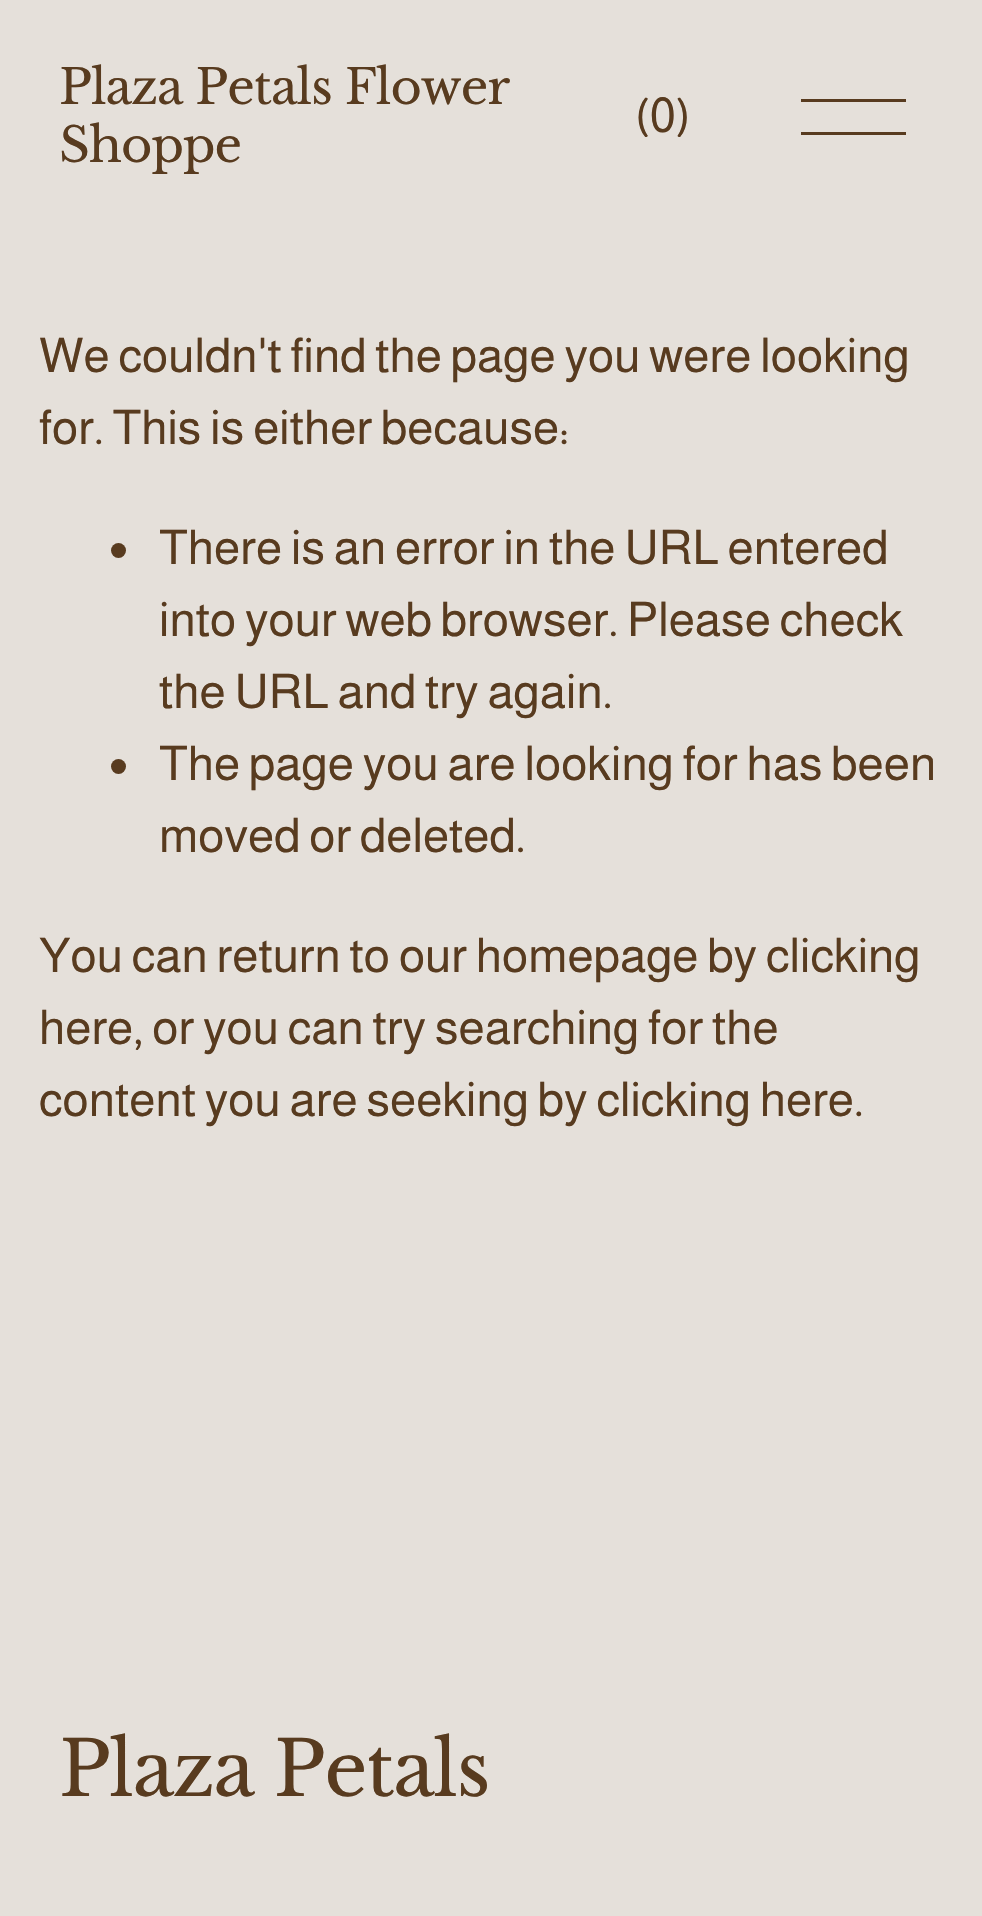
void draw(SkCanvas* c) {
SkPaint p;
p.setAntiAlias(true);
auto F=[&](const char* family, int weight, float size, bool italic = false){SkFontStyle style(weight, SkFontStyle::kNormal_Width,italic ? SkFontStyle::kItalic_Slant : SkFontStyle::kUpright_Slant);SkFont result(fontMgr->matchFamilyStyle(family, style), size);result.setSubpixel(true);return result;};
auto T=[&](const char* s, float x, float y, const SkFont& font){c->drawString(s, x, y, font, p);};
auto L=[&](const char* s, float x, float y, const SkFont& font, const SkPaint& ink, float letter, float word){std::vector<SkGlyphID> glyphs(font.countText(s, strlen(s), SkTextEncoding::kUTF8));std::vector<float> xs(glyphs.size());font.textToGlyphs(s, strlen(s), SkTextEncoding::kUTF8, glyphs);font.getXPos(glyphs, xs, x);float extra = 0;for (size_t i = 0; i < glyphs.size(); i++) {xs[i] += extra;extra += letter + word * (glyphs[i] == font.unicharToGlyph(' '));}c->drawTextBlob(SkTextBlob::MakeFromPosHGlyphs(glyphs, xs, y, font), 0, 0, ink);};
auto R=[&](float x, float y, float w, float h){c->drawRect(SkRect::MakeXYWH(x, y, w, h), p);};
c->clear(0xffe5e0da);
auto f1 = F("Libre Baskerville",400,48);
p.setColor(0xff583b1f);
L("Plaza Petals Flower",59,104,f1,p,-1,0);
L("Shoppe",59,162,f1,p,-1,0);
auto f2 = F("Almarai",400,48);
T("(0)",635,132,f2);
R(801,99,105,3);
R(801,132,105,3);
T("We couldn't find the page you were looking",39,372,f2);
T("for. This is either because:",39,444,f2);
c->drawCircle(118.5,550.5,7.5,p);
T("There is an error in the URL entered",159,564,f2);
T("into your web browser. Please check",159,636,f2);
T("the URL and try again.",159,708,f2);
c->drawCircle(118.5,766.5,7.5,p);
T("The page you are looking for has been",159,780,f2);
T("moved or deleted.",159,852,f2);
T("You can return to our homepage by clicking",39,972,f2);
T("here, or you can try searching for the",39,1044,f2);
T("content you are seeking by clicking here.",39,1116,f2);
auto f3 = F("Libre Baskerville",400,75.5);
L("Plaza Petals",59,1796,f3,p,-1.5,0);
}
